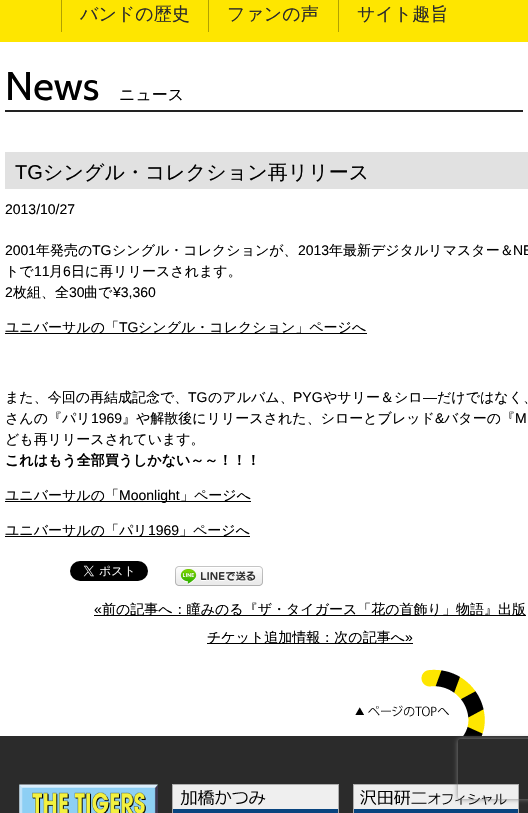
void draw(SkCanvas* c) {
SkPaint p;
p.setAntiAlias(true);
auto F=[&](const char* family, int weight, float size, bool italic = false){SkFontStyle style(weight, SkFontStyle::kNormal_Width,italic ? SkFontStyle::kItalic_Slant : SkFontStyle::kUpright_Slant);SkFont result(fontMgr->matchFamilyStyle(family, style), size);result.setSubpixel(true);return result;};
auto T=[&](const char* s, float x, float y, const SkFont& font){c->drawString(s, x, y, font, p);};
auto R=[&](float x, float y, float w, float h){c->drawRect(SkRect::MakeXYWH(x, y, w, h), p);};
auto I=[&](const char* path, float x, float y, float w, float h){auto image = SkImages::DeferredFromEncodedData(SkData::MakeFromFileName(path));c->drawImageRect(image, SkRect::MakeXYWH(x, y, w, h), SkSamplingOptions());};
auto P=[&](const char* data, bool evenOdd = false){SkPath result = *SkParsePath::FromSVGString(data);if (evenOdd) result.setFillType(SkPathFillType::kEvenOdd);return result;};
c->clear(0xffffffff);
p.setColor(0xfffee600);
R(0,0,528,42);
p.setColor(0xffb2a100);
R(61,0,1,32);
auto f1 = F("WenQuanYi Zen Hei",500,18);
p.setColor(0xff2b2b2b);
T("バンドの歴史",80,20,f1);
p.setColor(0xffb2a100);
R(208,0,1,32);
p.setColor(0xff2b2b2b);
T("ファンの声",227,20,f1);
p.setColor(0xffb2a100);
R(338,0,1,32);
p.setColor(0xff2b2b2b);
T("サイト趣旨",357,20,f1);
p.setColor(0xff222222);
R(5,110,518,2);
auto f2 = F("Cabin",400,40);
p.setColor(0xff000000);
T("News",5,100,f2);
auto f3 = F("WenQuanYi Zen Hei",500,16);
T("ニュース",119,100,f3);
p.setColor(0xffe1e1e1);
R(5,152,523,37);
auto f4 = F("Liberation Sans",400,20);
p.setColor(0xff000000);
T("TG",15,179,f4);
auto f5 = F("WenQuanYi Zen Hei",500,20);
T("シングル・コレクション再リリース",43,179,f5);
auto f6 = F("Liberation Sans",400,14);
T("2013/10/27",5,214,f6);
T("2001",5,255,f6);
auto f7 = F("WenQuanYi Zen Hei",500,14);
T("年発売の",36,255,f7);
T("TG",92,255,f6);
T("シングル・コレクションが、",112,255,f7);
T("2013",298,255,f6);
T("年最新デジタルリマスター＆",329,255,f7);
T("NE",513,255,f6);
T("トで",5,276,f7);
T("11",34,276,f6);
T("月",49,276,f7);
T("6",63,276,f6);
T("日に再リリースされます。",71,276,f7);
T("2",5,297,f6);
T("枚組、全",13,297,f7);
T("30",69,297,f6);
T("曲で",84,297,f7);
T("¥3,360",113,297,f6);
R(5,333,362,1);
T("ユニバーサルの「",5,332,f7);
T("TG",119,332,f6);
T("シングル・コレクション」ページへ",138,332,f7);
T("また、今回の再結成記念で、",5,402,f7);
T("TG",188,402,f6);
T("のアルバム、",208,402,f7);
T("PYG",293,402,f6);
T("やサリー＆シロ",323,402,f7);
T("―",423,402,f6);
T("だけではなく、",437,402,f7);
T("さんの『パリ",5,423,f7);
T("1969",91,423,f6);
T("』や解散後にリリースされた、シローとブレッド",122,423,f7);
T("&",435,423,f6);
T("バターの『",444,423,f7);
T("M",515,423,f6);
T("ども再リリースされています。",5,444,f7);
auto f8 = F("WenQuanYi Zen Hei",700,14);
T("これはもう全部買うしかない～～！！！",5,465,f8);
R(5,501,246,1);
T("ユニバーサルの「",5,500,f7);
T("Moonlight",119,500,f6);
T("」ページへ",180,500,f7);
R(5,536,245,1);
T("ユニバーサルの「パリ",5,535,f7);
T("1969",148,535,f6);
T("」ページへ",179,535,f7);
I("1.png",70,561,78,20);
I("2.png",175,566,88,20);
T("«",94,614,f6);
R(94,615,432,1);
T("前の記事へ：瞳みのる『ザ・タイガース「花の首飾り」物語』出版",102,614,f7);
R(207,643,206,1);
T("チケット追加情報：次の記事へ",207,642,f7);
T("»",405,642,f6);
p.setColor(0xff2b2b2b);
R(0,736,528,77);
I("3.png",355,669,130,67);
I("4.png",19,784,139,29);
I("5.png",172,784,167,29);
I("6.png",353,784,166,29);
c->save();
c->clipPath(P("M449 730h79v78h-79zm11 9h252c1 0 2 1 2 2v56c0 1-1 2-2 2h-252c-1 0-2-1-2-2v-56c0-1 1-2 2-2z",true),true);
p.setColor(0xff808080);
p.setMaskFilter(SkMaskFilter::MakeBlur(kNormal_SkBlurStyle, 2.5));
c->drawRoundRect(SkRect::MakeXYWH(458,739,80,60),2,2,p);
p.setMaskFilter(nullptr);
c->restore();
}
